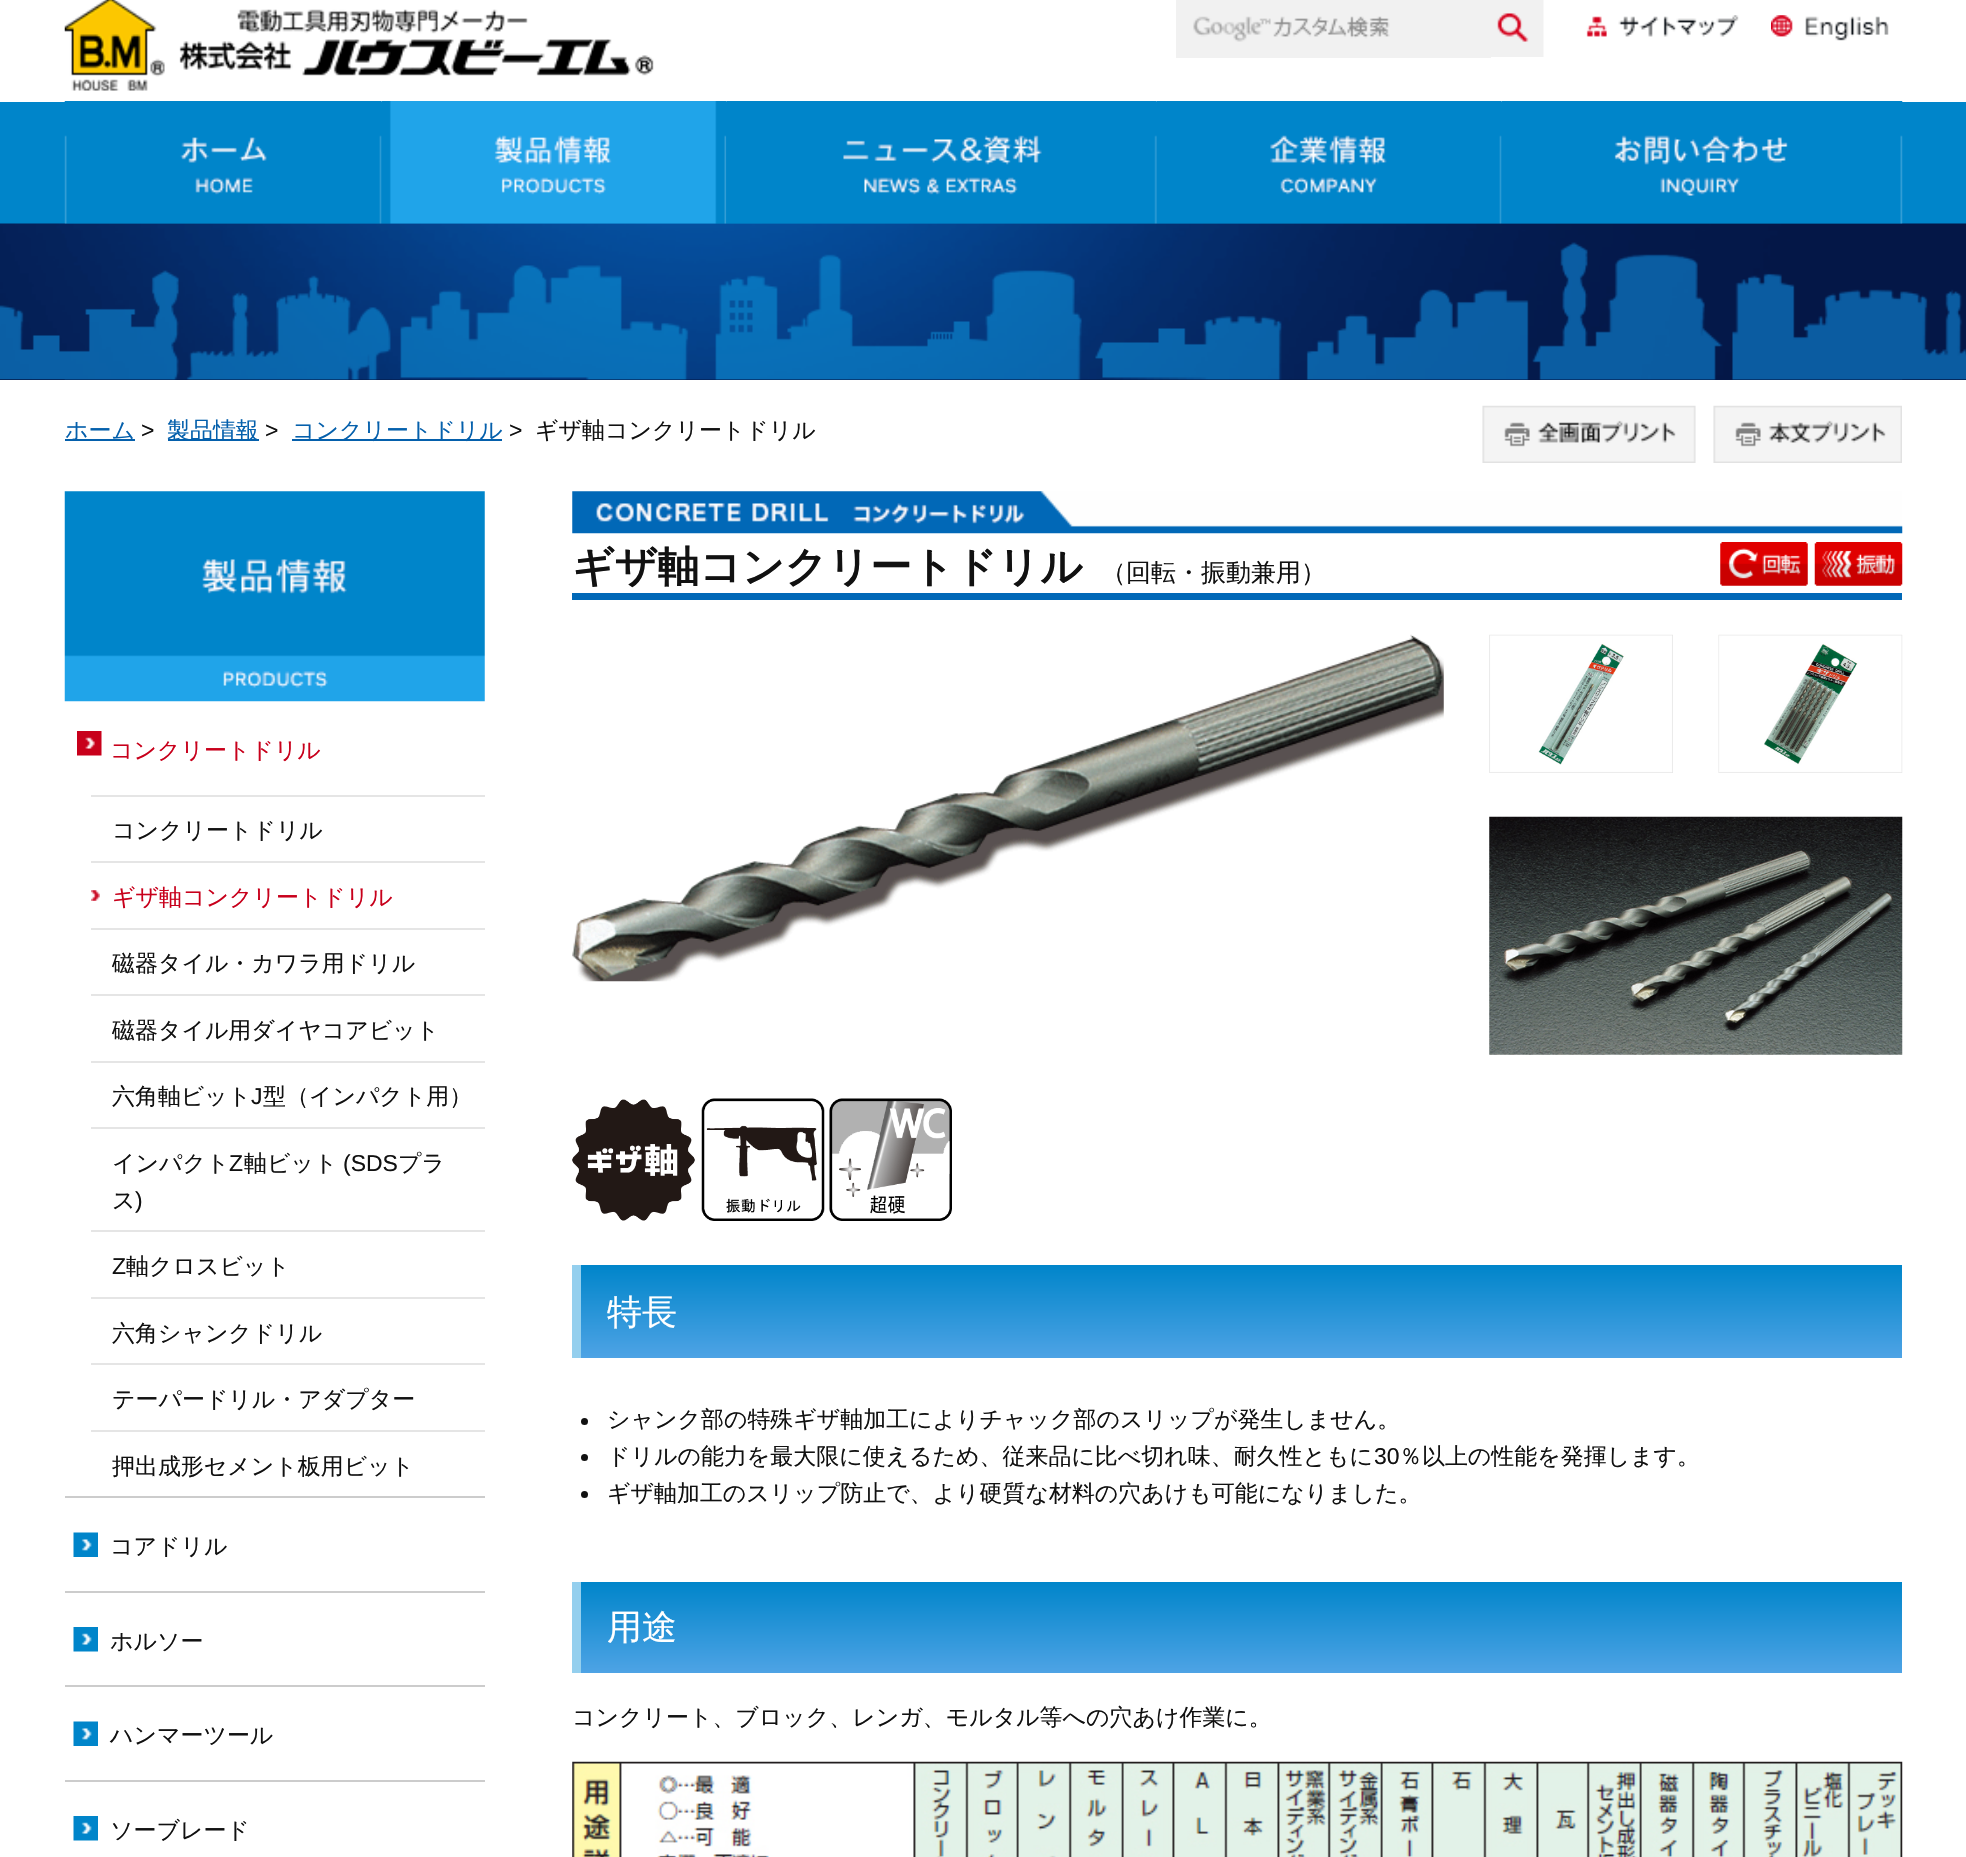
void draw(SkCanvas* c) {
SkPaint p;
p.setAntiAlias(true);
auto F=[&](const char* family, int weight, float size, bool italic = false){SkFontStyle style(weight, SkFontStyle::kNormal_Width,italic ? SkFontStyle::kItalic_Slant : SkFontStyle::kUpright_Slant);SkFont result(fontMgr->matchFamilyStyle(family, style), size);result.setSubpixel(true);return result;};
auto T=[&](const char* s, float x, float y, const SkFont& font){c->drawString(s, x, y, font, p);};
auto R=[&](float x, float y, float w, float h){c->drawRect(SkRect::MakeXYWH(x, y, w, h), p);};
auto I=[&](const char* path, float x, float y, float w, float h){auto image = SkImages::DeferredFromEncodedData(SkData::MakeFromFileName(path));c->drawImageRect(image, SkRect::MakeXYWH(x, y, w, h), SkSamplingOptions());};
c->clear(0xffffffff);
I("1.png",64,0,590,91);
p.setColor(0xfff1f1f1);
R(1176,0,315,58);
I("2.png",1193,16,197,26);
I("3.png",1491,0,53,57);
I("4.png",1586,15,153,22);
I("5.png",1771,15,118,26);
p.setColor(0xff0085ca);
R(0,102,1966,122);
p.setColor(0xff041747);
R(0,379,1966,1);
I("11.png",0,223,1966,157);
I("12.png",64,223,1839,157);
I("6.png",64,101,318,123);
I("7.png",381,101,346,123);
I("8.png",726,101,431,123);
I("9.png",1156,101,346,123);
I("10.png",1501,101,402,123);
p.setColor(0xff0560ac);
R(65,439,70,2);
auto f1 = F("WenQuanYi Zen Hei",500,22.95);
T("ホーム",65,438,f1);
auto f2 = F("Liberation Sans",400,22.95);
p.setColor(0xff111111);
T(">",141,438,f2);
p.setColor(0xff0560ac);
R(168,439,91,2);
T("製品情報",167,438,f1);
p.setColor(0xff111111);
T(">",265,438,f2);
p.setColor(0xff0560ac);
R(292,439,210,2);
T("コンクリートドリル",292,438,f1);
p.setColor(0xff111111);
T(">",509,438,f2);
T("ギザ軸コンクリートドリル",535,438,f1);
I("13.png",1482,405,214,58);
I("14.png",1713,405,189,58);
I("15.png",64,491,421,211);
p.setColor(0xffcccccc);
R(65,1496,420,2);
I("16.png",77,731,25,25);
p.setColor(0xffc8001b);
T("コンクリートドリル",110,758,f1);
p.setColor(0xffe5e5e5);
R(91,795,394,2);
p.setColor(0xff111111);
T("コンクリートドリル",112,838,f1);
p.setColor(0xffe5e5e5);
R(91,861,394,2);
I("17.png",91,890,9,11);
p.setColor(0xffc8001b);
T("ギザ軸コンクリートドリル",112,905,f1);
p.setColor(0xffe5e5e5);
R(91,928,394,2);
p.setColor(0xff111111);
T("磁器タイル・カワラ用ドリル",112,971,f1);
p.setColor(0xffe5e5e5);
R(91,994,394,2);
p.setColor(0xff111111);
T("磁器タイル用ダイヤコアビット",112,1038,f1);
p.setColor(0xffe5e5e5);
R(91,1061,394,2);
p.setColor(0xff111111);
T("六角軸ビット",112,1104,f1);
T("J",251,1104,f2);
T("型（インパクト用）",263,1104,f1);
p.setColor(0xffe5e5e5);
R(91,1127,394,2);
p.setColor(0xff111111);
T("インパクト",112,1171,f1);
T("Z",229,1171,f2);
T("軸ビット",244,1171,f1);
T("(SDS",343,1171,f2);
T("プラ",398,1171,f1);
T("ス",112,1208,f1);
T(")",135,1208,f2);
p.setColor(0xffe5e5e5);
R(91,1230,394,2);
p.setColor(0xff111111);
T("Z",112,1274,f2);
T("軸クロスビット",126,1274,f1);
p.setColor(0xffe5e5e5);
R(91,1297,394,2);
p.setColor(0xff111111);
T("六角シャンクドリル",112,1341,f1);
p.setColor(0xffe5e5e5);
R(91,1363,394,2);
p.setColor(0xff111111);
T("テーパードリル・アダプター",112,1407,f1);
p.setColor(0xffe5e5e5);
R(91,1430,394,2);
p.setColor(0xff111111);
T("押出成形セメント板用ビット",112,1474,f1);
p.setColor(0xffcccccc);
R(65,1591,420,2);
I("18.png",73,1532,25,25);
p.setColor(0xff111111);
T("コアドリル",110,1554,f1);
p.setColor(0xffcccccc);
R(65,1685,420,2);
I("19.png",73,1627,25,25);
p.setColor(0xff111111);
T("ホルソー",110,1649,f1);
p.setColor(0xffcccccc);
R(65,1780,420,2);
I("18.png",73,1721,25,25);
p.setColor(0xff111111);
T("ハンマーツール",110,1743,f1);
I("19.png",73,1816,25,25);
T("ソーブレード",110,1838,f1);
I("20.png",572,491,1331,43);
p.setColor(0xff0168b7);
R(572,593,1330,7);
auto f3 = F("WenQuanYi Zen Hei",700,41.75);
p.setColor(0xff111111);
T("ギザ軸コンクリートドリル",572,581,f3);
auto f4 = F("WenQuanYi Zen Hei",500,25);
T("（回転・振動兼用）",1101,581,f4);
I("21.png",1720,542,88,44);
I("22.png",1814,542,89,44);
I("23.png",572,634,872,348);
I("24.png",1489,634,184,139);
I("25.png",1718,634,185,139);
I("26.png",1489,816,414,239);
I("27.png",572,1099,123,122);
I("28.png",701,1098,124,123);
I("29.png",829,1098,123,123);
{
const SkColor colors[] = {0xff0085ca,0xff4ea3e5};
const float stops[] = {0,1};
const SkPoint ends[] = {{1242,1265}, {1242,1358}};
p.setShader(SkGradientShader::MakeLinear(ends, colors, stops, 2, SkTileMode::kClamp));
p.setAlpha(255);
}
R(581,1265,1321,93);
p.setShader(nullptr);
p.setColor(0xff94cfee);
R(572,1265,9,93);
auto f5 = F("WenQuanYi Zen Hei",500,35);
p.setColor(0xffffffff);
T("特長",607,1324,f5);
p.setColor(0xff111111);
c->drawCircle(584.5,1421.5,3.5,p);
T("シャンク部の特殊ギザ軸加工によりチャック部のスリップが発生しません。",607,1427,f1);
c->drawCircle(584.5,1457.5,3.5,p);
T("ドリルの能力を最大限に使えるため、従来品に比べ切れ味、耐久性ともに",607,1464,f1);
T("30",1374,1464,f2);
T("％以上の性能を発揮します。",1399,1464,f1);
c->drawCircle(584.5,1494.5,3.5,p);
T("ギザ軸加工のスリップ防止で、より硬質な材料の穴あけも可能になりました。",607,1501,f1);
{
const SkColor colors[] = {0xff0085ca,0xff4ea3e5};
const float stops[] = {0,1};
const SkPoint ends[] = {{1242,1582}, {1242,1673}};
p.setShader(SkGradientShader::MakeLinear(ends, colors, stops, 2, SkTileMode::kClamp));
p.setAlpha(255);
}
R(581,1582,1321,91);
p.setShader(nullptr);
p.setColor(0xff94cfee);
R(572,1582,9,91);
p.setColor(0xffffffff);
T("用途",607,1639,f5);
p.setColor(0xff111111);
T("コンクリート、ブロック、レンガ、モルタル等への穴あけ作業に。",572,1725,f1);
I("30.png",572,1761,1331,96);
}
